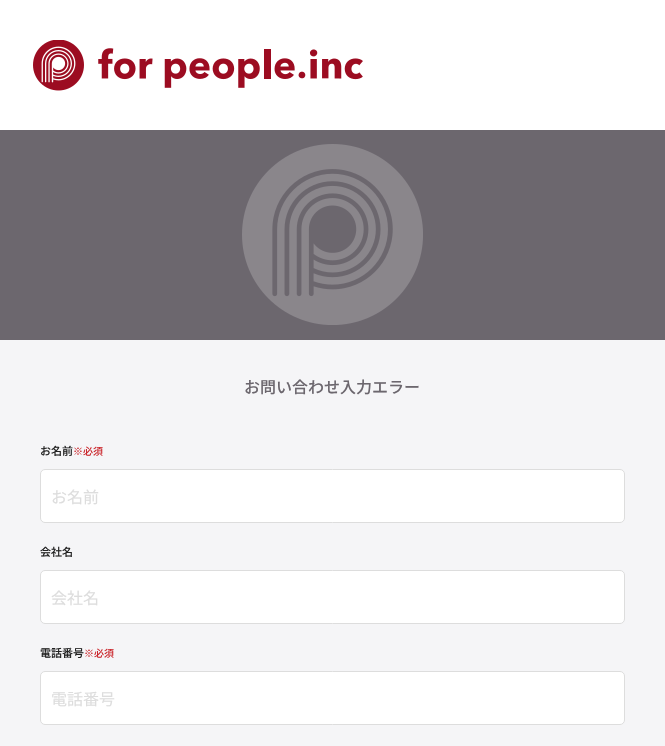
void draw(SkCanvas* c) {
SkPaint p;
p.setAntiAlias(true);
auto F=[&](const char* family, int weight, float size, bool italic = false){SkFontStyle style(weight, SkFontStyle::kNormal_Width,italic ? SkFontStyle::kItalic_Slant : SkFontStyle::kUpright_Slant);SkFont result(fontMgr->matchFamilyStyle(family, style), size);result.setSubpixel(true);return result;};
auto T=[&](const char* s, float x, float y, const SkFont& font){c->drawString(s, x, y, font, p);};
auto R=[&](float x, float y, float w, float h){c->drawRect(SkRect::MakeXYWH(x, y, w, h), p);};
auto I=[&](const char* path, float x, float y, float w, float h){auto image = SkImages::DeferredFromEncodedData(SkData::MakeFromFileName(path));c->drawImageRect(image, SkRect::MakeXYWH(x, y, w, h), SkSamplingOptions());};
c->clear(0xffffffff);
I("1.png",33,40,330,51);
p.setColor(0xff6c676e);
R(0,130,665,210);
I("2.png",242,144,181,181);
p.setColor(0xfff5f5f7);
R(0,340,665,406);
auto f1 = F("Noto Sans JP",500,16);
p.setColor(0xff6c676e);
T("お問い合わせ入力エラー",244,393,f1);
auto f2 = F("Noto Sans JP",500,11);
p.setColor(0xff222222);
T("お名前",40,455,f2);
auto f3 = F("Noto Sans JP",500,10);
p.setColor(0xffcb272d);
T("※必須",73,455,f3);
p.setColor(0xffffffff);
c->drawRoundRect(SkRect::MakeXYWH(40.5,469.5,584,53),4.5,4.5,p);
p.setStroke(true);
p.setStrokeWidth(1);
p.setColor(0xffdddddd);
c->drawRoundRect(SkRect::MakeXYWH(40.5,469.5,584,53),4.5,4.5,p);
auto f4 = F("Noto Sans JP",400,16);
p.setStroke(false);
T("お名前",51,503,f4);
p.setColor(0xff222222);
T("会社名",40,556,f2);
p.setColor(0xffffffff);
c->drawRoundRect(SkRect::MakeXYWH(40.5,570.5,584,53),4.5,4.5,p);
p.setStroke(true);
p.setColor(0xffdddddd);
c->drawRoundRect(SkRect::MakeXYWH(40.5,570.5,584,53),4.5,4.5,p);
p.setStroke(false);
T("会社名",51,604,f4);
p.setColor(0xff222222);
T("電話番号",40,657,f2);
p.setColor(0xffcb272d);
T("※必須",84,657,f3);
p.setColor(0xffffffff);
c->drawRoundRect(SkRect::MakeXYWH(40.5,671.5,584,53),4.5,4.5,p);
p.setStroke(true);
p.setColor(0xffdddddd);
c->drawRoundRect(SkRect::MakeXYWH(40.5,671.5,584,53),4.5,4.5,p);
p.setStroke(false);
T("電話番号",51,705,f4);
}
